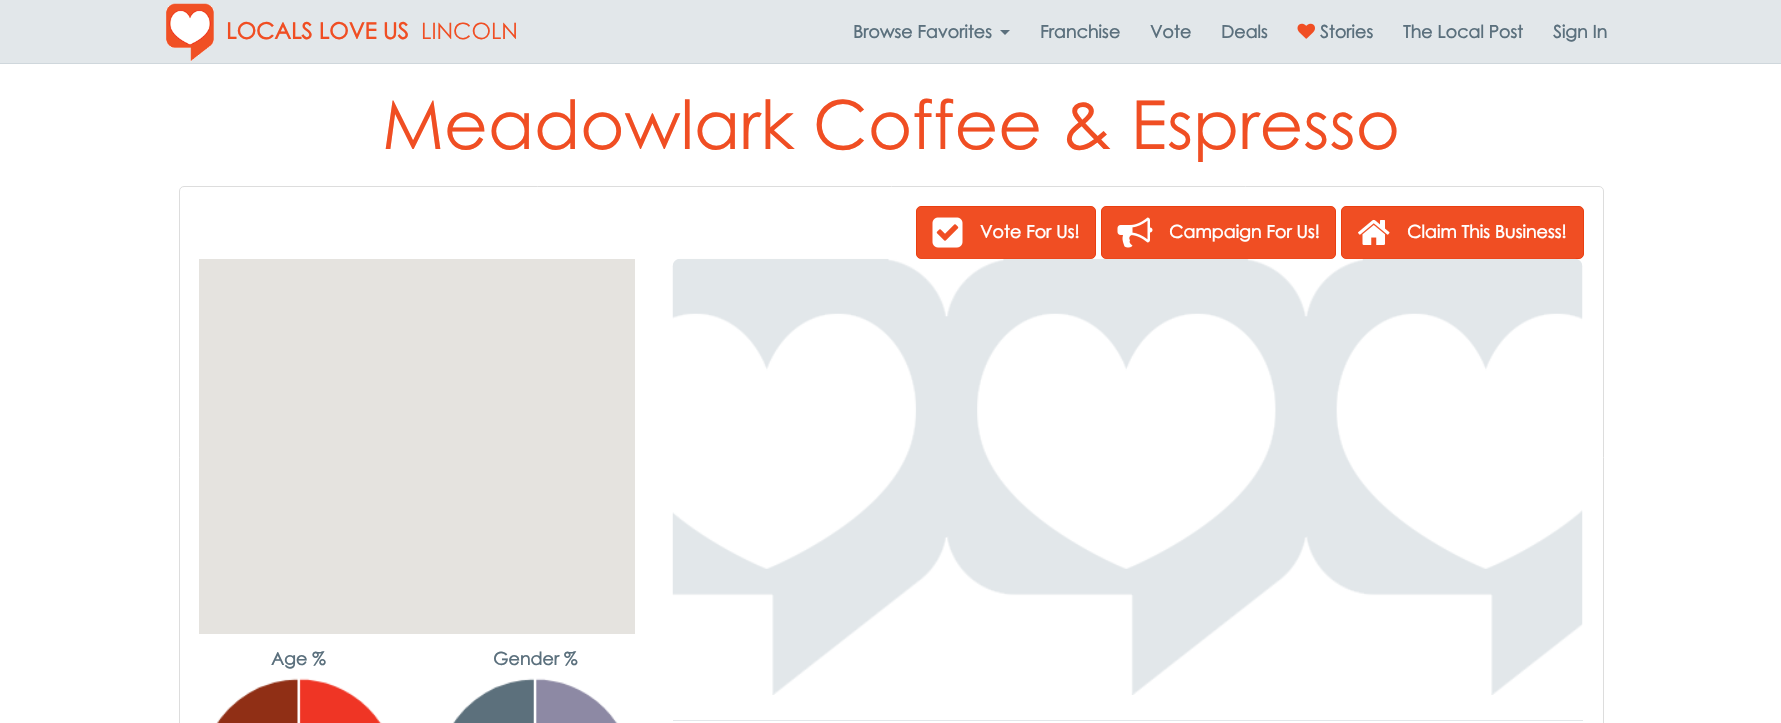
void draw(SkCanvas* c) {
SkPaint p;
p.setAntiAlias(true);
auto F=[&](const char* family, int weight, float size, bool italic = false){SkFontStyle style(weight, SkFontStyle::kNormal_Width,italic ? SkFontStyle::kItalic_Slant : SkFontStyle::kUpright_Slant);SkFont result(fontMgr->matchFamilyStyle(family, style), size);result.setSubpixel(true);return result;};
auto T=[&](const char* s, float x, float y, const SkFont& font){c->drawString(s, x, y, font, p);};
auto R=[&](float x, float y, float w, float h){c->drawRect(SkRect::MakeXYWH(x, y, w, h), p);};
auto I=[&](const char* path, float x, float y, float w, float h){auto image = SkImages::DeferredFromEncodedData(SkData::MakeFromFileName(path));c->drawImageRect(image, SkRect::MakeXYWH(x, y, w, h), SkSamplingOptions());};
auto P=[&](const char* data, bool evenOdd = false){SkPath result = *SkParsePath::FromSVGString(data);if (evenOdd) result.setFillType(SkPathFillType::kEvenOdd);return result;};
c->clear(0xffffffff);
p.setColor(0xffe2e7ea);
R(0,0,1781,63);
p.setColor(0xffcfd7dc);
R(0,63,1781,1);
I("1.png",166,3,48,59);
auto f1 = F("Century Gothic",700,22.5);
p.setColor(0xfff04e23);
T("LOCALS LOVE US",226,39,f1);
auto f2 = F("Century Gothic",400,22.5);
T("LINCOLN",421,39,f2);
auto f3 = F("Century Gothic",700,17.5);
p.setColor(0xff5b707d);
T("Browse Favorites",853,38,f3);
c->drawPath(P("M1000 30h10l-5 5z"),p);
T("Franchise",1040,38,f3);
T("Vote",1150,38,f3);
T("Deals",1221,38,f3);
I("2.png",1297,23,18,16);
T("Stories",1320,38,f3);
T("The Local Post",1403,38,f3);
T("Sign In",1553,38,f3);
auto f4 = F("Century Gothic",400,67.5);
p.setColor(0xfff04e23);
T("Meadowlark Coffee & Espresso",382,149,f4);
p.setStroke(true);
p.setStrokeWidth(1);
p.setColor(0xffdddddd);
c->drawRoundRect(SkRect::MakeXYWH(179.5,186.5,1424,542),4.5,4.5,p);
p.setStroke(false);
p.setColor(0xfff04e23);
c->drawRoundRect(SkRect::MakeXYWH(916.5,206.5,179,52),4.5,4.5,p);
p.setStroke(true);
p.setColor(0xffea3e10);
c->drawRoundRect(SkRect::MakeXYWH(916.5,206.5,179,52),4.5,4.5,p);
I("3.png",932,217,31,31);
p.setStroke(false);
p.setColor(0xffffffff);
T("Vote For Us!",980,238,f3);
p.setColor(0xfff04e23);
c->drawRoundRect(SkRect::MakeXYWH(1101.5,206.5,234,52),4.5,4.5,p);
p.setStroke(true);
p.setColor(0xffea3e10);
c->drawRoundRect(SkRect::MakeXYWH(1101.5,206.5,234,52),4.5,4.5,p);
I("4.png",1117,217,36,31);
p.setStroke(false);
p.setColor(0xffffffff);
T("Campaign For Us!",1169,238,f3);
p.setColor(0xfff04e23);
c->drawRoundRect(SkRect::MakeXYWH(1341.5,206.5,242,52),4.5,4.5,p);
p.setStroke(true);
p.setColor(0xffea3e10);
c->drawRoundRect(SkRect::MakeXYWH(1341.5,206.5,242,52),4.5,4.5,p);
I("5.png",1358,219,32,26);
p.setStroke(false);
p.setColor(0xffffffff);
T("Claim This Business!",1407,238,f3);
p.setColor(0xffe5e3df);
R(199,259,436,375);
p.setColor(0xff5b707d);
T("Age %",271,665,f3);
I("6.png",216,678,166,45);
T("Gender %",493,665,f3);
I("7.png",453,678,165,45);
I("8.png",672,258,911,437);
p.setColor(0xffe2e7ea);
R(673,720,910,1);
}
